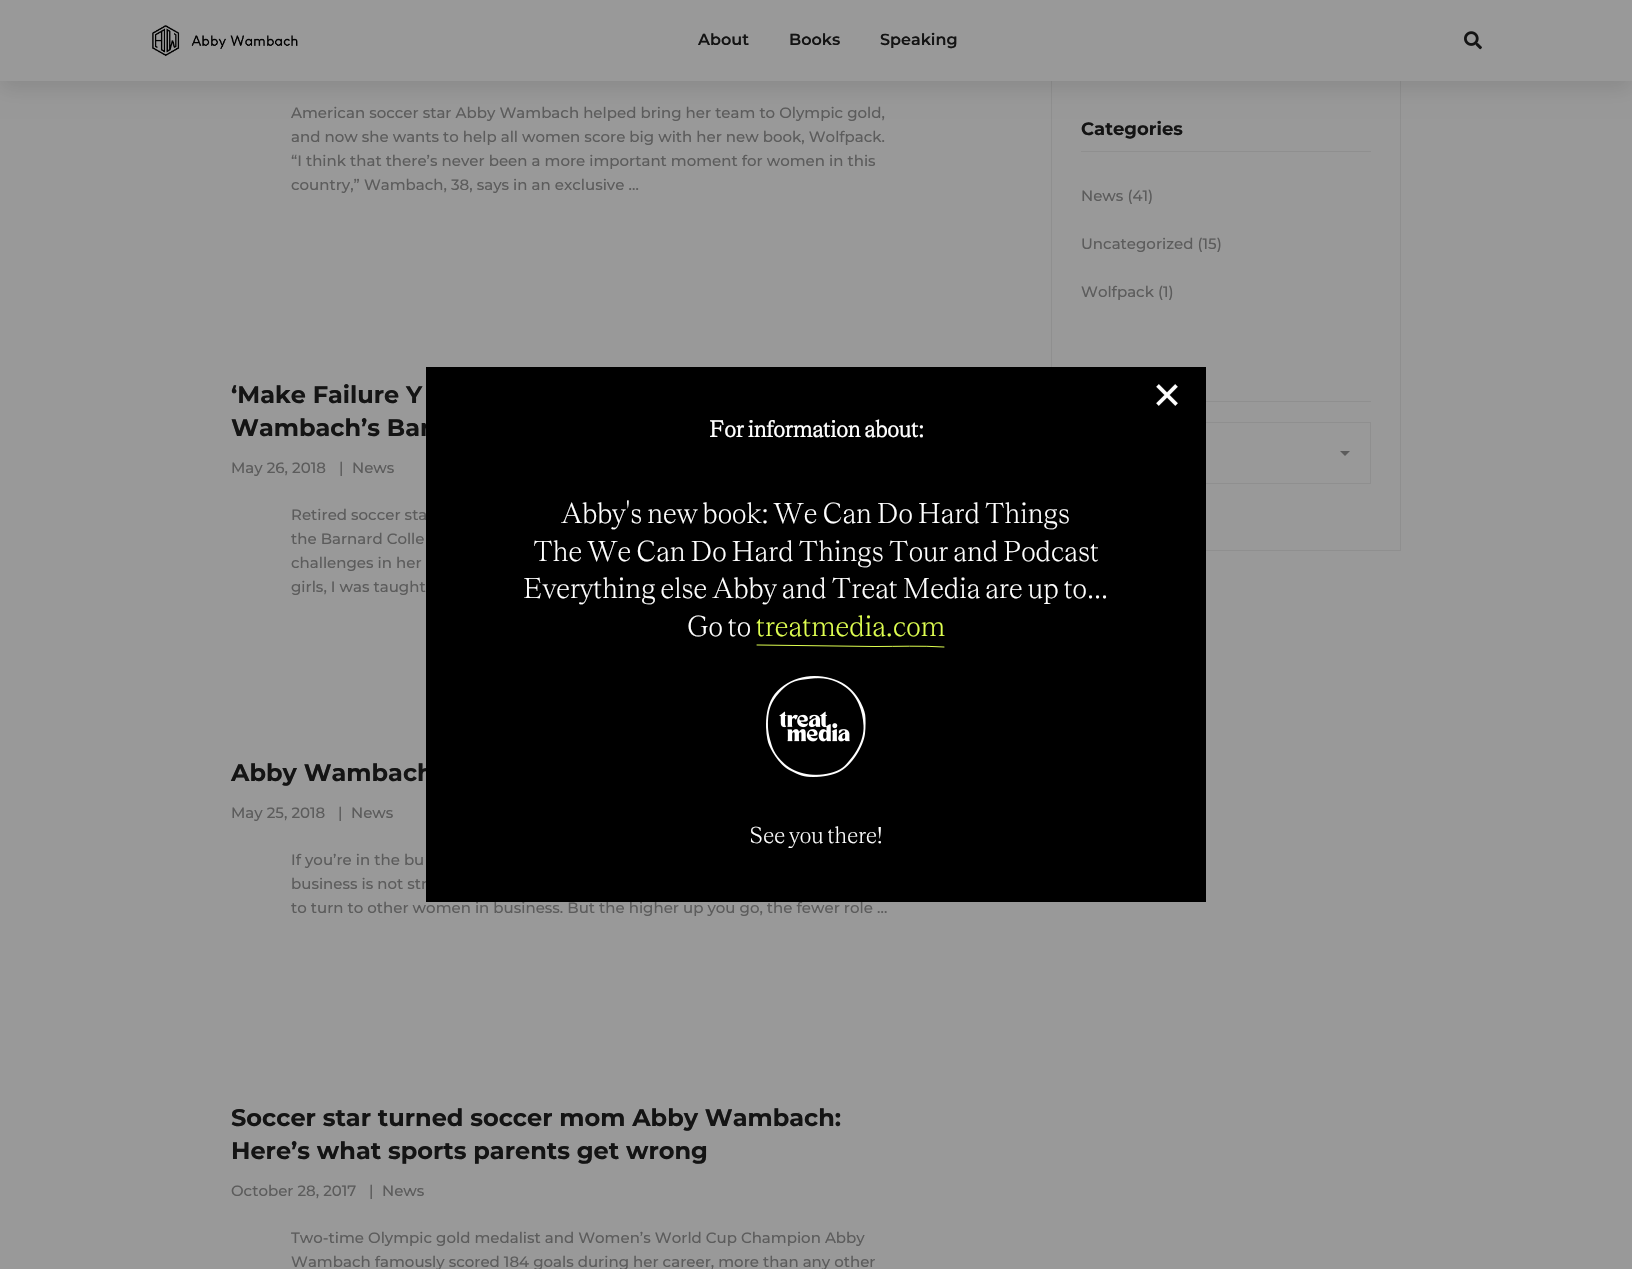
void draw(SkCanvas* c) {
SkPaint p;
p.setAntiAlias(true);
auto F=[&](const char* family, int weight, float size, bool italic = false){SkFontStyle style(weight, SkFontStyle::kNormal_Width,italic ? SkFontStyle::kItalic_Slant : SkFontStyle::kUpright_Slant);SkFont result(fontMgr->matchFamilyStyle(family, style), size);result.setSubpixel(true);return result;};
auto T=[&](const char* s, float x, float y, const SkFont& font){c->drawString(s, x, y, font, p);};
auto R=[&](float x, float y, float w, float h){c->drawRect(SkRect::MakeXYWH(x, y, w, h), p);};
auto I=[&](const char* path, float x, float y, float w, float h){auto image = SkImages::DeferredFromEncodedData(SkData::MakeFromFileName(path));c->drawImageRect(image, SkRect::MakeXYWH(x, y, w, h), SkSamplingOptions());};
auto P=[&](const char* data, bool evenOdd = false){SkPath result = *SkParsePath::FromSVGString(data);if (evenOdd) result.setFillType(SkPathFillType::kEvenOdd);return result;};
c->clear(0xff999999);
p.setStroke(true);
p.setStrokeWidth(1);
p.setColor(0xff8f8f8f);
c->drawRect(SkRect::MakeXYWH(1051.5,-.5,349,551),p);
p.setStroke(false);
p.setColor(0x1a000000);
p.setMaskFilter(SkMaskFilter::MakeBlur(kNormal_SkBlurStyle, 10));
c->drawRect(SkRect::MakeXYWH(0,8,1632,81),p);
p.setMaskFilter(nullptr);
p.setColor(0xff999999);
R(0,0,1632,81);
I("1.png",152,25,146,32);
auto f1 = F("Montserrat",600,16);
p.setColor(0xff141414);
T("About",698,45,f1);
T("Books",789,45,f1);
T("Speaking",880,45,f1);
I("2.png",1464,31,18,19);
auto f2 = F("Montserrat",500,15);
p.setColor(0xff5c5c5c);
T("American soccer star Abby Wambach helped bring her team to Olympic gold,",291,118,f2);
T("and now she wants to help all women score big with her new book, Wolfpack.",291,142,f2);
T("“I think that there’s never been a more important moment for women in this",291,166,f2);
T("country,” Wambach, 38, says in an exclusive …",291,190,f2);
auto f3 = F("Montserrat",700,24);
p.setColor(0xff141414);
T("‘Make Failure Y",231,403,f3);
T("Wambach’s Bar",231,436,f3);
p.setColor(0xff5c5c5c);
T("May 26, 2018",231,473,f2);
T("|",339,473,f2);
T("News",352,473,f2);
T("Retired soccer sta",291,520,f2);
T("the Barnard Colle",291,544,f2);
T("challenges in her",291,568,f2);
T("girls, I was taught",291,592,f2);
p.setColor(0xff141414);
T("Abby Wambach",231,781,f3);
p.setColor(0xff5c5c5c);
T("May 25, 2018",231,818,f2);
T("|",338,818,f2);
T("News",351,818,f2);
T("If you’re in the bu",291,865,f2);
T("business is not str",291,889,f2);
T("to turn to other women in business. But the higher up you go, the fewer role …",291,913,f2);
p.setColor(0xff141414);
T("Soccer star turned soccer mom Abby Wambach:",231,1126,f3);
T("Here’s what sports parents get wrong",231,1159,f3);
p.setColor(0xff5c5c5c);
T("October 28, 2017",231,1196,f2);
T("|",369,1196,f2);
T("News",382,1196,f2);
T("Two-time Olympic gold medalist and Women’s World Cup Champion Abby",291,1243,f2);
T("Wambach famously scored 184 goals during her career, more than any other",291,1267,f2);
p.setColor(0xff8f8f8f);
R(1081,151,290,1);
auto f4 = F("Montserrat",700,18);
p.setColor(0xff141414);
T("Categories",1081,135,f4);
p.setColor(0xff5c5c5c);
T("News (41)",1081,201,f2);
T("Uncategorized (15)",1081,249,f2);
T("Wolfpack (1)",1081,297,f2);
p.setColor(0xff8f8f8f);
R(1206,401,165,1);
I("3.png",1340,451,10,5);
p.setStroke(true);
c->drawRect(SkRect::MakeXYWH(1081.5,422.5,289,61),p);
p.setStroke(false);
p.setColor(0xff000000);
R(426,367,780,535);
auto f5 = F("Liberation Sans",400,48);
p.setColor(0xffffffff);
T("×",1153,411,f5);
auto f6 = F("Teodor",700,24);
T("For information about:",709,437,f6);
auto f7 = F("Teodor",300,30);
T("Abby's new book: We Can Do Hard Things",561,523,f7);
T("The We Can Do Hard Things Tour and Podcast",533,561,f7);
T("Everything else Abby and Treat Media are up to...",523,598,f7);
T("Go to",687,636,f7);
p.setColor(0xffdfff50);
T("treatmedia.com",756,636,f7);
p.setStroke(true);
p.setStrokeCap(SkPaint::kRound_Cap);
c->drawPath(P("M757 645l118 1.5c23 0 46-1 69 .5"),p);
I("4.png",766,676,100,101);
auto f8 = F("Teodor",300,24);
p.setStroke(false);
p.setColor(0xffffffff);
T("See you there!",749,843,f8);
}
